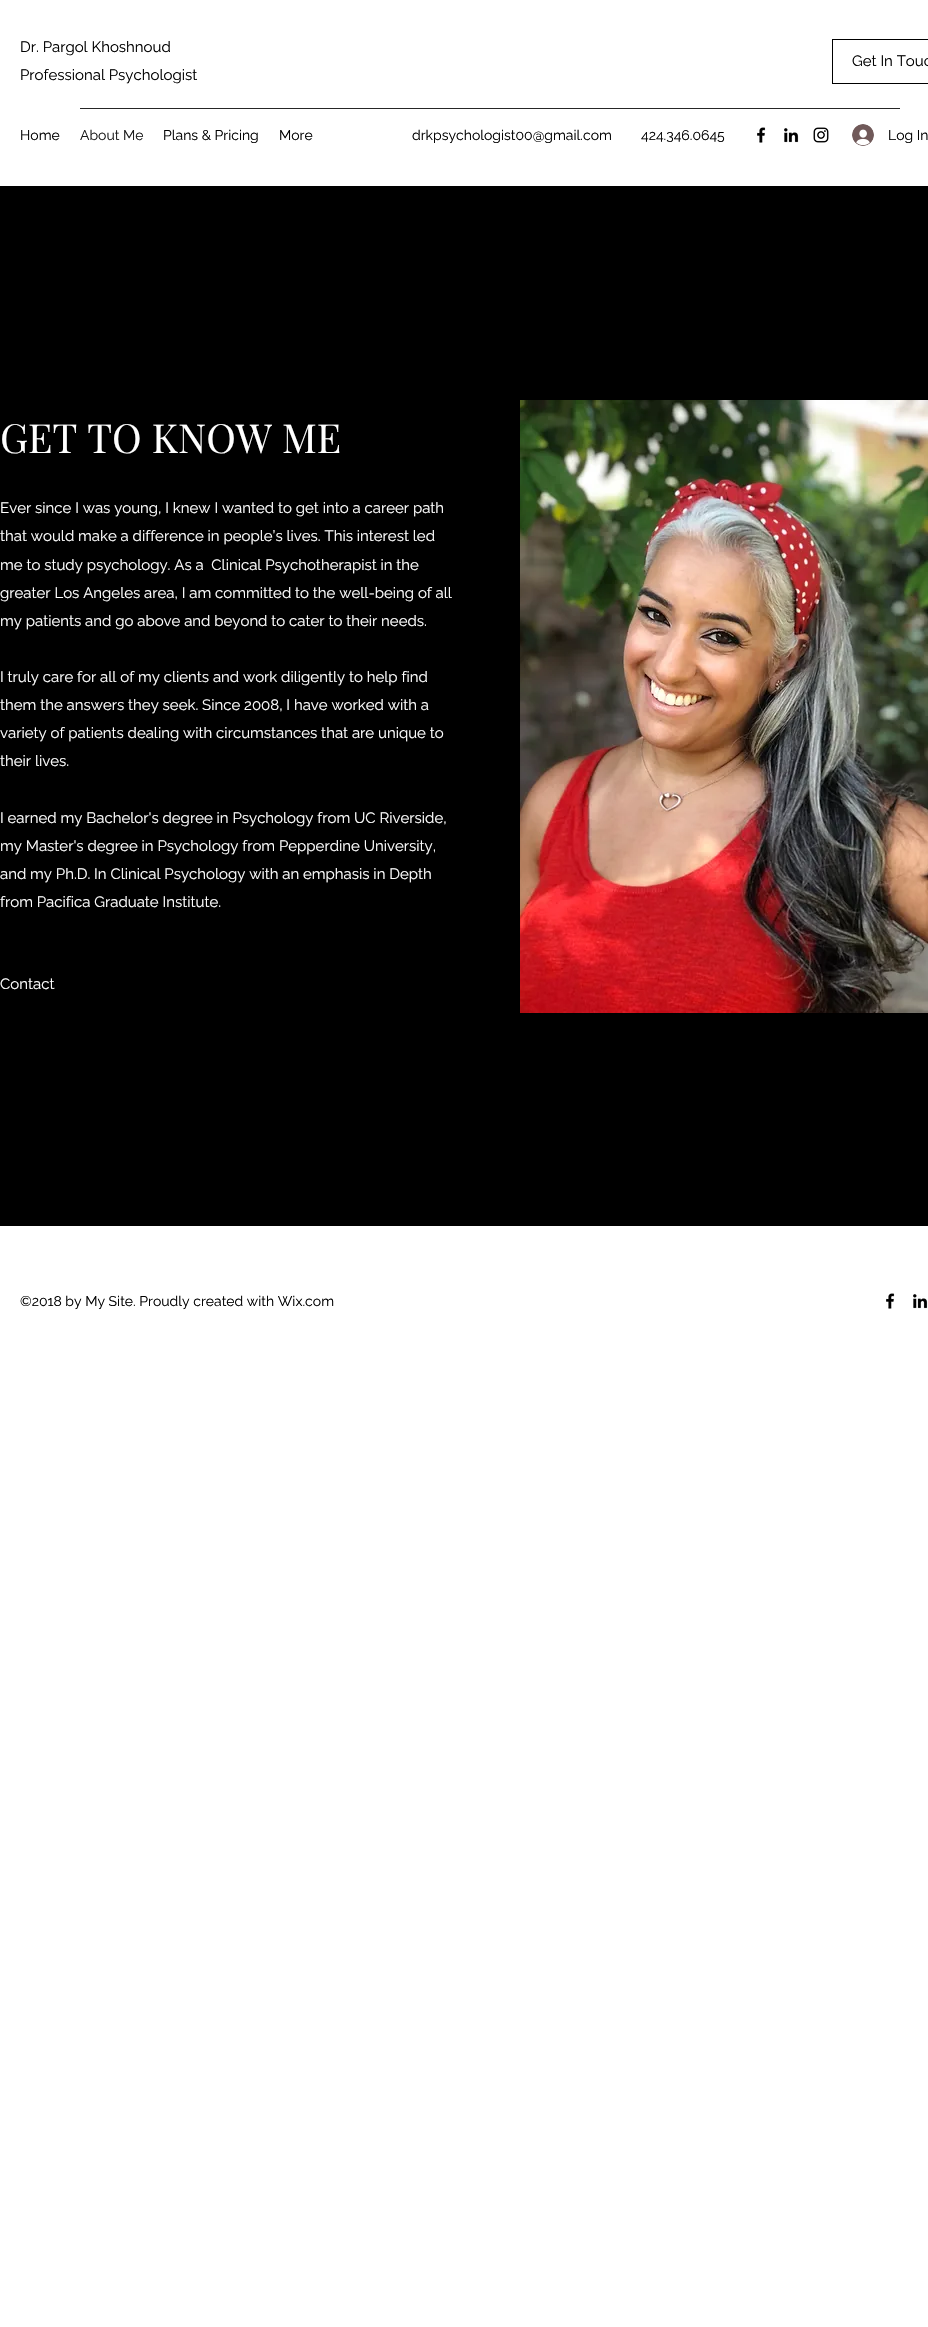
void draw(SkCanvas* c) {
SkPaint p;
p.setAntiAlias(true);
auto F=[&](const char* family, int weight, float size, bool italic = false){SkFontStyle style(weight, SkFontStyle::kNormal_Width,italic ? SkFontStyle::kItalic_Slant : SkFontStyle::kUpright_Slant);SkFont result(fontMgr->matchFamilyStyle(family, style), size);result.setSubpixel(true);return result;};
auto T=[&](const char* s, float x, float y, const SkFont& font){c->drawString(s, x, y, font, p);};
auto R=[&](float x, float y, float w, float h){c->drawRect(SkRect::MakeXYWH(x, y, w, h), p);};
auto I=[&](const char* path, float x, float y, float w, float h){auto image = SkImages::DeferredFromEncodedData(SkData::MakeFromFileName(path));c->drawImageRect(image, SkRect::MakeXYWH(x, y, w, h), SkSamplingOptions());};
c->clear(0xffffffff);
auto f1 = F("Raleway",400,15);
p.setColor(0xff000000);
T("Dr. Pargol Khoshnoud",20,52,f1);
T("Professional Psychologist",20,80,f1);
p.setStroke(true);
p.setStrokeWidth(1);
c->drawRect(SkRect::MakeXYWH(832.5,39.5,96,44),p);
p.setStroke(false);
T("Get In Touc",852,66,f1);
p.setColor(0xff262626);
R(80,108,820,1);
auto f2 = F("Raleway",400,14);
p.setColor(0xff000000);
T("Home",20,140,f2);
p.setColor(0xff191919);
T("About Me",80,140,f2);
p.setColor(0xff000000);
T("Plans & Pricing",163,140,f2);
T("More",279,140,f2);
T("drkpsychologist00@gmail.com",412,140,f2);
T("424.346.0645",641,140,f2);
I("1.png",757,127,9,16);
I("2.png",784,128,15,15);
I("3.png",813,127,16,16);
I("4.png",852,124,22,22);
T("Log In",888,140,f2);
R(0,186,928,1040);
auto f3 = F("Playfair Display",400,40);
p.setColor(0xffffffff);
T("GET TO KNOW ME",0,453,f3);
T("Ever since I was young, I knew I wanted to get into a career path",0,513,f1);
T("that would make a difference in people’s lives. This interest led",0,541,f1);
T("me to study psychology. As a  Clinical Psychotherapist in the",0,570,f1);
T("greater Los Angeles area, I am committed to the well-being of all",0,598,f1);
T("my patients and go above and beyond to cater to their needs.",0,626,f1);
T("I truly care for all of my clients and work diligently to help find",0,682,f1);
T("them the answers they seek. Since 2008, I have worked with a",0,710,f1);
T("variety of patients dealing with circumstances that are unique to",0,738,f1);
T("their lives.",0,766,f1);
T("I earned my Bachelor's degree in Psychology from UC Riverside,",0,823,f1);
T("my Master's degree in Psychology from Pepperdine University,",0,851,f1);
T("and my Ph.D. In Clinical Psychology with an emphasis in Depth",0,879,f1);
T("from Pacifica Graduate Institute.",0,907,f1);
T("Contact",0,989,f1);
I("5.png",520,400,408,613);
p.setColor(0xff000000);
T("©2018 by My Site. Proudly created with Wix.com",20,1306,f2);
I("1.png",886,1293,9,16);
I("2.png",913,1294,15,15);
}
